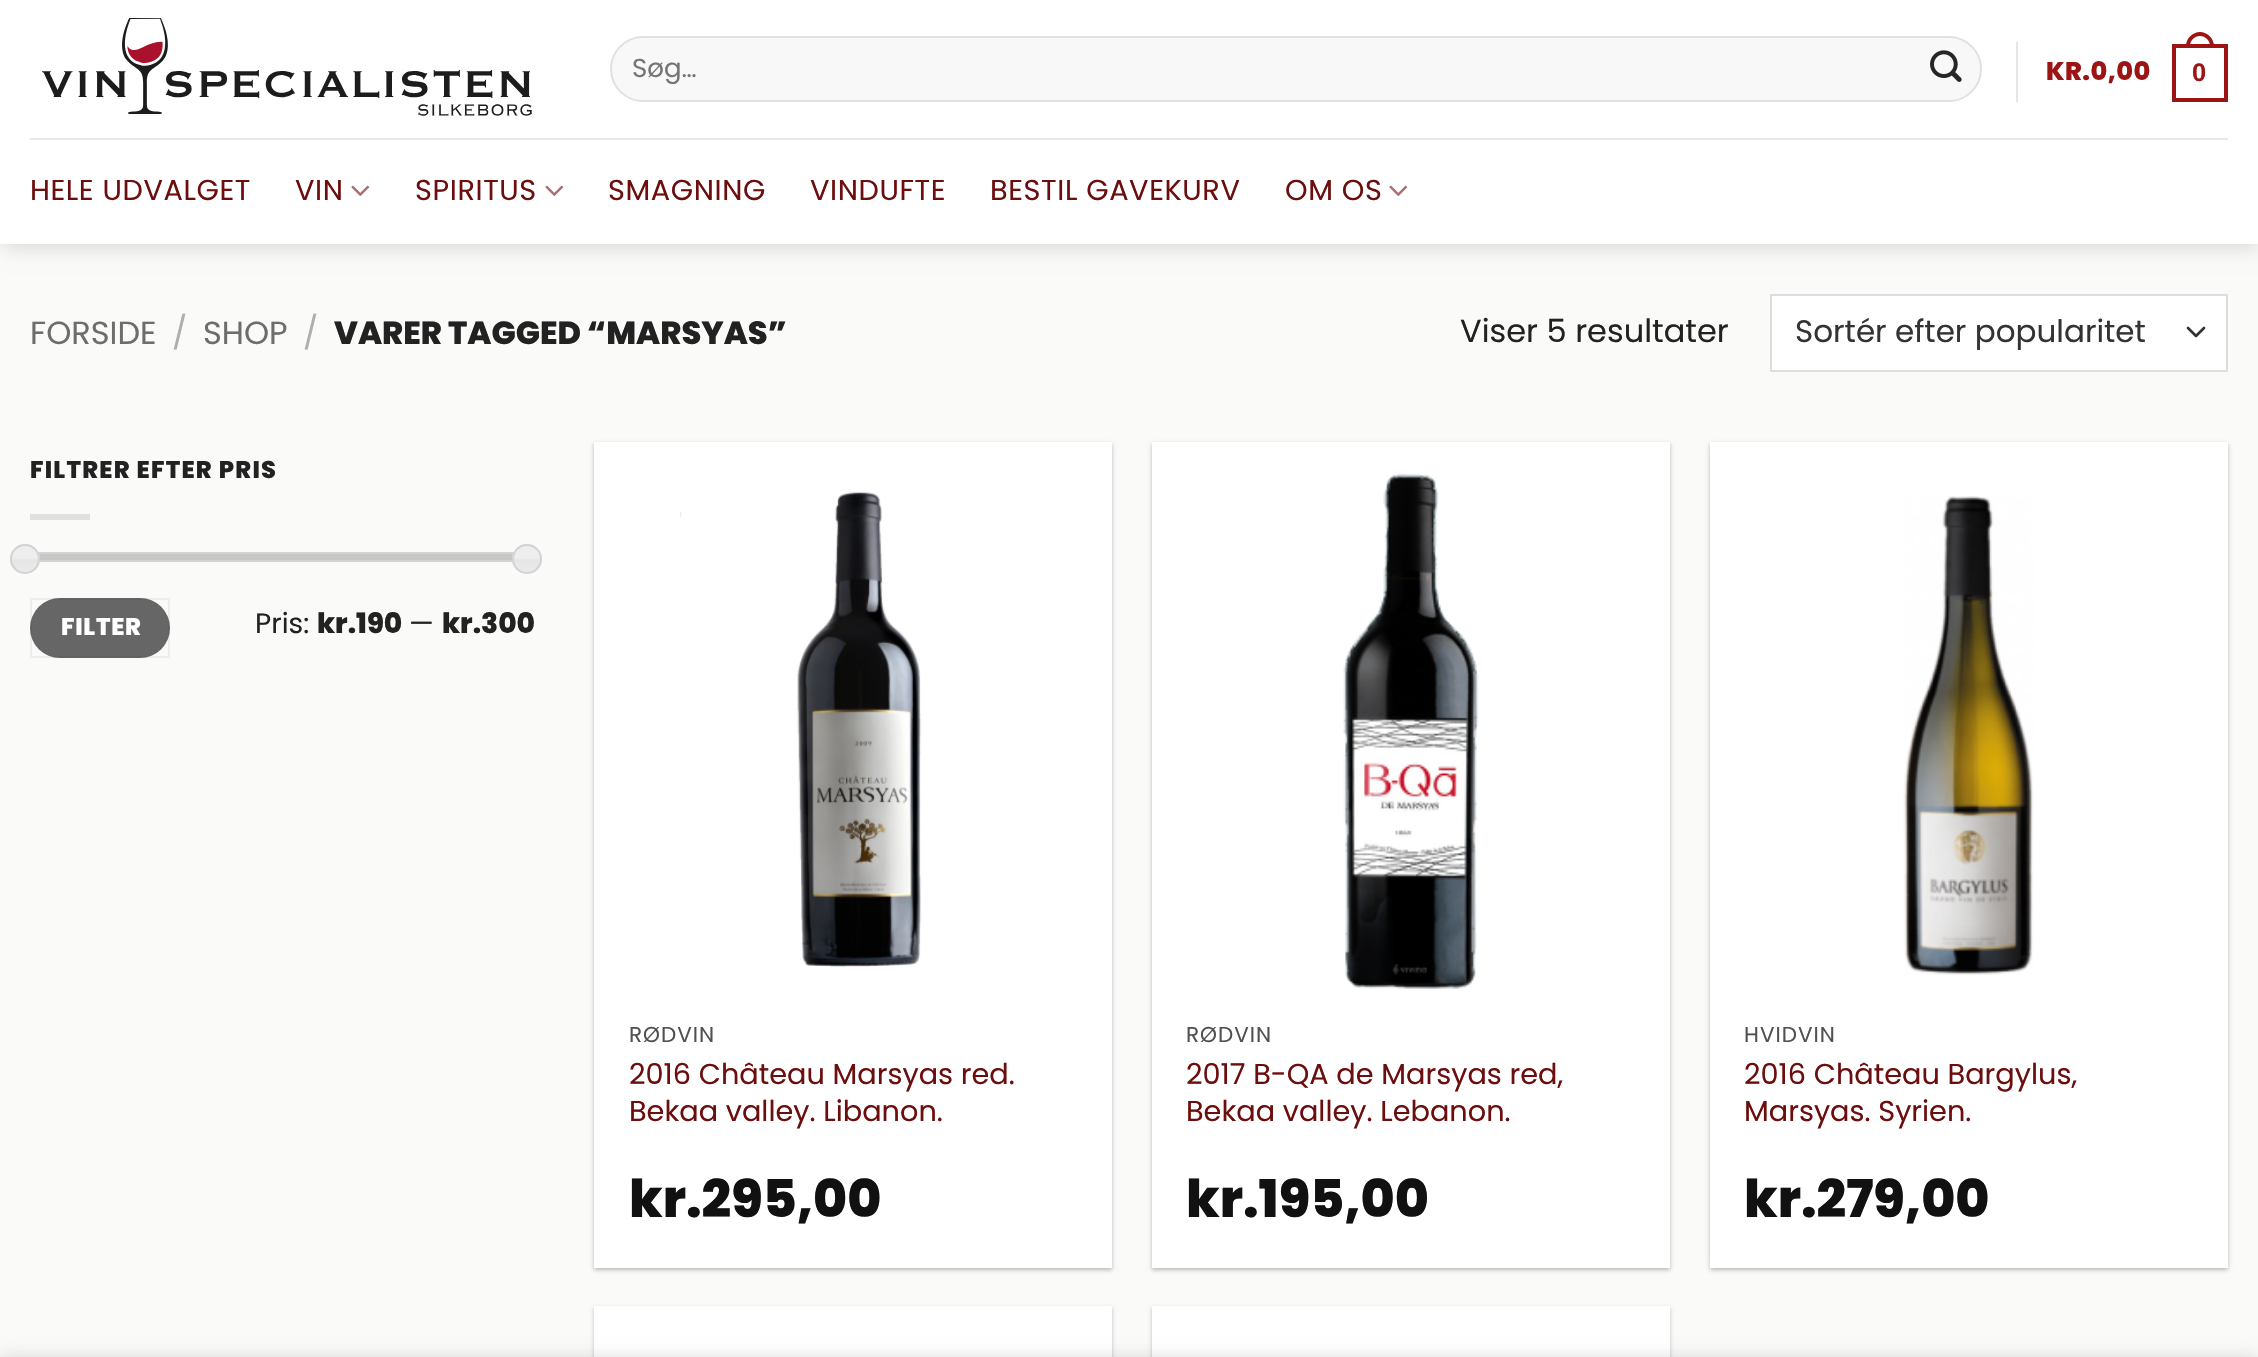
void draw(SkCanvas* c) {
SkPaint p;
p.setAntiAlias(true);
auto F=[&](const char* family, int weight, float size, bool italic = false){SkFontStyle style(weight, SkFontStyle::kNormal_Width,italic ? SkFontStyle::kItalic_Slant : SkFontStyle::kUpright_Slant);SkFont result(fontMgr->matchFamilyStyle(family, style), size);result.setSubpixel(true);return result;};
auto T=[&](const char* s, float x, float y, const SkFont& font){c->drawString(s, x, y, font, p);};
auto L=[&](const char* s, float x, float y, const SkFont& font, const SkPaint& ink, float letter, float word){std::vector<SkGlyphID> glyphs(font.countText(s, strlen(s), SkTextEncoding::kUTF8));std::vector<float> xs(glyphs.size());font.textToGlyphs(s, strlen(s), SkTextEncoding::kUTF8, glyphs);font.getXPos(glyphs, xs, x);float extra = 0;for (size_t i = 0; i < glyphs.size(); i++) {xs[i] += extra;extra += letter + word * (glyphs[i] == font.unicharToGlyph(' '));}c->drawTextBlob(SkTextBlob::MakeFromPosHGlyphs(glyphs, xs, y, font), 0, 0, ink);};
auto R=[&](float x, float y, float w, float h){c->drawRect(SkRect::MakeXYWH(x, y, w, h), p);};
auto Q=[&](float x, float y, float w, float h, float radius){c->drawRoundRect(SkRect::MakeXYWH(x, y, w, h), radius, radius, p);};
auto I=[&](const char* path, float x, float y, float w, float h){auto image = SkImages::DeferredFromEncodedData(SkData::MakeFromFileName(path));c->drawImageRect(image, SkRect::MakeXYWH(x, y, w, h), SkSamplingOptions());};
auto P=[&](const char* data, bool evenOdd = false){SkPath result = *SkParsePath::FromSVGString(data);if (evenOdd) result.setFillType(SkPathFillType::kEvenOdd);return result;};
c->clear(0xfffafaf9);
p.setColor(0x26000000);
p.setMaskFilter(SkMaskFilter::MakeBlur(kNormal_SkBlurStyle, 10));
c->drawRect(SkRect::MakeXYWH(2,2,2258,244),p);
p.setMaskFilter(nullptr);
p.setColor(0xffffffff);
R(0,0,2258,244);
I("1.png",42,18,490,98);
p.setColor(0xfff8f8f8);
Q(610,36,1372,66,33);
p.setStroke(true);
p.setStrokeWidth(2);
p.setColor(0x17000000);
c->drawRoundRect(SkRect::MakeXYWH(611,37,1370,64),32,32,p);
auto f1 = F("Poppins",400,26);
p.setStroke(false);
p.setColor(0xff757575);
T("Søg…",632,77,f1);
I("2.png",1930,50,32,32);
p.setColor(0xffe6e6e6);
R(2016,42,2,60);
auto f2 = F("Poppins",800,25.5);
p.setColor(0xff9d1414);
L("KR.0,00",2046,80,f2,p,.5,0);
p.setStroke(true);
p.setStrokeWidth(4);
c->drawRect(SkRect::MakeXYWH(2174,46,52,54),p);
p.setStroke(false);
c->drawPath(P("M2200 32c7.5 0 14 6.5 14 14v2h-28v-2c0-7.5 6.5-14 14-14zm0 4c5.5 0 10 4.5 10 10v2h-20v-2c0-5.5 4.5-10 10-10z",true),p);
auto f3 = F("Liberation Sans",700,25.5);
L("0",2192,81,f3,p,.5,0);
p.setColor(0xffe9e9e9);
R(30,138,2198,2);
auto f4 = F("Poppins",400,28.75);
p.setColor(0xff6c0e0e);
L("HELE UDVALGET",30,200,f4,p,.6,0);
L("VIN",295,200,f4,p,.6,0);
I("3.png",351,185,19,11);
L("SPIRITUS",415,200,f4,p,.6,0);
I("3.png",545,185,19,11);
L("SMAGNING",608,200,f4,p,.6,0);
L("VINDUFTE",810,200,f4,p,.6,0);
L("BESTIL GAVEKURV",990,200,f4,p,.6,0);
L("OM OS",1285,200,f4,p,.6,0);
I("3.png",1389,185,19,11);
auto f5 = F("Poppins",400,32);
p.setColor(0xff6d6d6d);
T("FORSIDE",30,344,f5);
p.setColor(0xffaeaeae);
T("/",172,344,f5);
p.setColor(0xff6d6d6d);
T("SHOP",203,344,f5);
p.setColor(0xffaeaeae);
T("/",303,344,f5);
auto f6 = F("Poppins",800,32);
p.setColor(0xff222222);
T("VARER TAGGED “MARSYAS”",334,344,f6);
T("Viser 5 resultater",1460,342,f5);
p.setColor(0xffffffff);
R(1772,296,454,74);
p.setStroke(true);
p.setStrokeWidth(2.7);
p.setStrokeCap(SkPaint::kRound_Cap);
p.setStrokeJoin(SkPaint::kRound_Join);
p.setColor(0xff333333);
c->drawPath(P("M2188 328l8 8l8-8"),p);
p.setStrokeWidth(2);
p.setStrokeCap(SkPaint::kButt_Cap);
p.setStrokeJoin(SkPaint::kMiter_Join);
p.setColor(0xffdddddd);
c->drawRect(SkRect::MakeXYWH(1771,295,456,76),p);
auto f7 = F("Poppins",400,31);
p.setStroke(false);
p.setColor(0xff333333);
T("Sortér efter popularitet",1795,342,f7);
auto f8 = F("Poppins",800,24);
p.setColor(0xff222222);
L("FILTRER EFTER PRIS",30,478,f8,p,1.25,0);
p.setColor(0xffe1e1e0);
R(30,514,60,6);
p.setColor(0xfff1f1f1);
R(39,554,474,6);
p.setStroke(true);
p.setColor(0xffd3d3d3);
c->drawRect(SkRect::MakeXYWH(31,553,502,8),p);
p.setStroke(false);
p.setColor(0x80666666);
R(32,554,481,6);
p.setColor(0x80e3e3e3);
R(32,554,481,6);
I("4.png",10,544,30,30);
p.setStroke(true);
p.setColor(0xffd3d3d3);
c->drawCircle(25,559,14,p);
I("5.png",512,544,30,30);
c->drawCircle(527,559,14,p);
p.setStroke(false);
p.setColor(0xff666666);
Q(30,598,140,60,30);
p.setStroke(true);
p.setColor(0x0d000000);
c->drawRect(SkRect::MakeXYWH(31,599,138,58),p);
p.setStroke(false);
p.setColor(0xffffffff);
L("FILTER",61,635,f8,p,.75,0);
auto f9 = F("Poppins",400,28);
p.setColor(0xff222222);
T("Pris:",255,633,f9);
auto f10 = F("Poppins",800,28);
T("kr.190",317,633,f10);
T("—",409,633,f9);
T("kr.300",442,633,f10);
p.setColor(0x3d000000);
p.setMaskFilter(SkMaskFilter::MakeBlur(kNormal_SkBlurStyle, 2));
c->drawRect(SkRect::MakeXYWH(594,444,518,826),p);
p.setMaskFilter(nullptr);
p.setColor(0x1f000000);
p.setMaskFilter(SkMaskFilter::MakeBlur(kNormal_SkBlurStyle, 3));
c->drawRect(SkRect::MakeXYWH(598,448,510,818),p);
p.setMaskFilter(nullptr);
p.setColor(0xffffffff);
R(594,442,518,826);
I("6.png",680,491,242,476);
auto f11 = F("Poppins",400,21.5);
p.setColor(0xff515151);
L("RØDVIN",629,1042,f11,p,1,0);
p.setColor(0xff6c0e0e);
T("2016 Château Marsyas red.",629,1084,f4);
T("Bekaa valley. Libanon.",629,1121,f4);
auto f12 = F("Poppins",800,52);
p.setColor(0xff111111);
T("kr.295,00",629,1217,f12);
p.setColor(0x3d000000);
p.setMaskFilter(SkMaskFilter::MakeBlur(kNormal_SkBlurStyle, 2));
c->drawRect(SkRect::MakeXYWH(1152,444,518,826),p);
p.setMaskFilter(nullptr);
p.setColor(0x1f000000);
p.setMaskFilter(SkMaskFilter::MakeBlur(kNormal_SkBlurStyle, 3));
c->drawRect(SkRect::MakeXYWH(1156,448,510,818),p);
p.setMaskFilter(nullptr);
p.setColor(0xffffffff);
R(1152,442,518,826);
I("7.png",1343,473,136,517);
p.setColor(0xff515151);
L("RØDVIN",1186,1042,f11,p,1,0);
p.setColor(0xff6c0e0e);
T("2017 B-QA de Marsyas red,",1186,1084,f4);
T("Bekaa valley. Lebanon.",1186,1121,f4);
p.setColor(0xff111111);
T("kr.195,00",1186,1217,f12);
p.setColor(0x3d000000);
p.setMaskFilter(SkMaskFilter::MakeBlur(kNormal_SkBlurStyle, 2));
c->drawRect(SkRect::MakeXYWH(1710,444,518,826),p);
p.setMaskFilter(nullptr);
p.setColor(0x1f000000);
p.setMaskFilter(SkMaskFilter::MakeBlur(kNormal_SkBlurStyle, 3));
c->drawRect(SkRect::MakeXYWH(1714,448,510,818),p);
p.setMaskFilter(nullptr);
p.setColor(0xffffffff);
R(1710,442,518,826);
I("8.png",1903,496,131,479);
p.setColor(0xff515151);
L("HVIDVIN",1744,1042,f11,p,1,0);
p.setColor(0xff6c0e0e);
T("2016 Château Bargylus,",1744,1084,f4);
T("Marsyas. Syrien.",1744,1121,f4);
p.setColor(0xff111111);
T("kr.279,00",1744,1217,f12);
p.setColor(0x3d000000);
p.setMaskFilter(SkMaskFilter::MakeBlur(kNormal_SkBlurStyle, 2));
c->drawRect(SkRect::MakeXYWH(594,1308,518,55),p);
p.setMaskFilter(nullptr);
p.setColor(0xffffffff);
R(594,1306,518,51);
p.setColor(0x3d000000);
p.setMaskFilter(SkMaskFilter::MakeBlur(kNormal_SkBlurStyle, 2));
c->drawRect(SkRect::MakeXYWH(1152,1308,518,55),p);
p.setMaskFilter(nullptr);
p.setColor(0xffffffff);
R(1152,1306,518,51);
p.setColor(0x24000000);
p.setMaskFilter(SkMaskFilter::MakeBlur(kNormal_SkBlurStyle, 9));
c->drawRect(SkRect::MakeXYWH(0,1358,2258,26),p);
p.setMaskFilter(nullptr);
}
